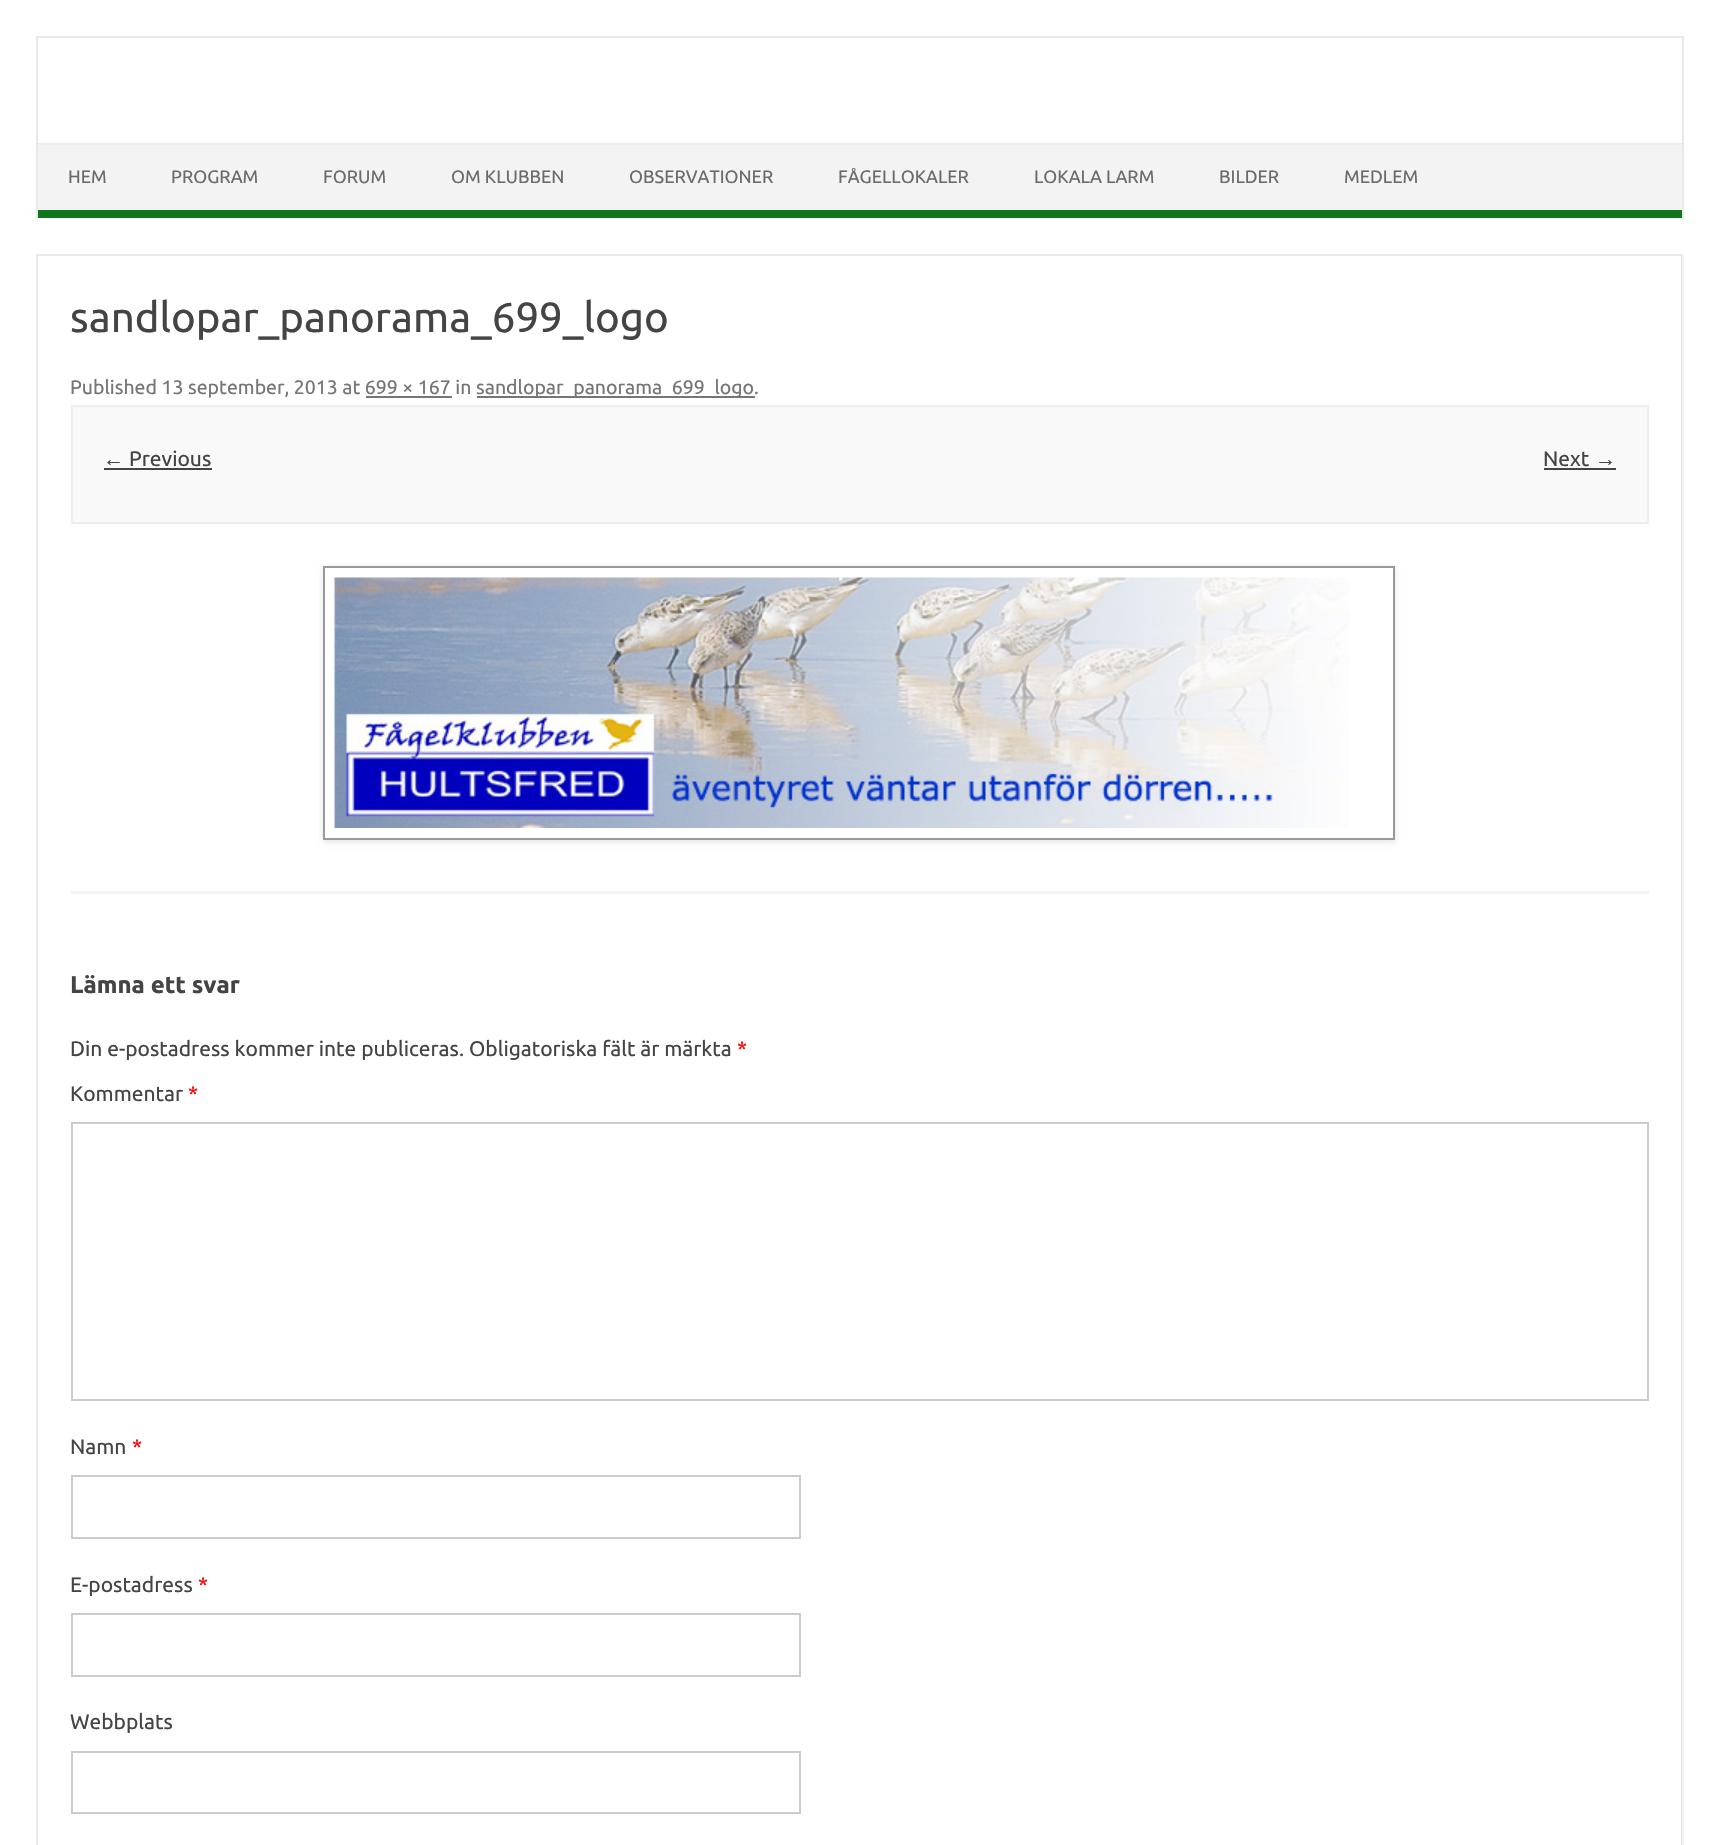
void draw(SkCanvas* c) {
SkPaint p;
p.setAntiAlias(true);
auto F=[&](const char* family, int weight, float size, bool italic = false){SkFontStyle style(weight, SkFontStyle::kNormal_Width,italic ? SkFontStyle::kItalic_Slant : SkFontStyle::kUpright_Slant);SkFont result(fontMgr->matchFamilyStyle(family, style), size);result.setSubpixel(true);return result;};
auto T=[&](const char* s, float x, float y, const SkFont& font){c->drawString(s, x, y, font, p);};
auto R=[&](float x, float y, float w, float h){c->drawRect(SkRect::MakeXYWH(x, y, w, h), p);};
auto I=[&](const char* path, float x, float y, float w, float h){auto image = SkImages::DeferredFromEncodedData(SkData::MakeFromFileName(path));c->drawImageRect(image, SkRect::MakeXYWH(x, y, w, h), SkSamplingOptions());};
auto P=[&](const char* data, bool evenOdd = false){SkPath result = *SkParsePath::FromSVGString(data);if (evenOdd) result.setFillType(SkPathFillType::kEvenOdd);return result;};
c->clear(0xffffffff);
p.setColor(0xffe9e9e9);
R(36,36,1647,2);
R(1682,36,2,182);
R(36,36,2,182);
p.setColor(0xfff3f3f3);
R(38,145,1644,65);
p.setColor(0xffededed);
R(38,143,1644,2);
p.setColor(0xff0e771e);
R(38,210,1644,8);
auto f1 = F("Ubuntu",400,18);
p.setColor(0xff6a6a6a);
T("HEM",68,183,f1);
T("PROGRAM",171,183,f1);
T("FORUM",323,183,f1);
T("OM KLUBBEN",451,183,f1);
T("OBSERVATIONER",629,183,f1);
T("FÅGELLOKALER",838,183,f1);
T("LOKALA LARM",1034,183,f1);
T("BILDER",1219,183,f1);
T("MEDLEM",1344,183,f1);
p.setStroke(true);
p.setStrokeWidth(2);
p.setColor(0xffe9e9e9);
c->drawRect(SkRect::MakeXYWH(37,255,1645,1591),p);
p.setStroke(false);
p.setColor(0xfff1f1f1);
R(1682,255,2,1590);
p.setColor(0xfff3f3f3);
R(71,891,1578,3);
auto f2 = F("Ubuntu",400,42);
p.setColor(0xff444444);
T("sandlopar_panorama_699_logo",70,332,f2);
auto f3 = F("Ubuntu",400,19.5);
p.setColor(0xff757575);
T("Published 13 september, 2013 at 699 × 167 in",70,394,f3);
R(477,396,278,2);
T("sandlopar_panorama_699_logo.",476,394,f3);
R(366,396,86,2);
p.setColor(0xfff9f9f9);
c->drawRect(SkRect::MakeXYWH(72,406,1576,117),p);
p.setStroke(true);
p.setColor(0xffededed);
c->drawRect(SkRect::MakeXYWH(72,406,1576,117),p);
auto f4 = F("Liberation Sans",400,21);
p.setStroke(false);
p.setColor(0xff444444);
T("←",103,466,f4);
R(104,468,108,2);
auto f5 = F("Ubuntu",400,21);
T("Previous",129,466,f5);
T("Next",1543,466,f5);
T("→",1595,466,f4);
R(1544,468,72,2);
c->save();
c->clipPath(P("M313 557h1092v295h-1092zm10 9h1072v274h-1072z",true),true);
p.setColor(0x1a000000);
p.setMaskFilter(SkMaskFilter::MakeBlur(kNormal_SkBlurStyle, 3));
c->drawRect(SkRect::MakeXYWH(323,567,1072,275),p);
p.setMaskFilter(nullptr);
c->restore();
p.setStroke(true);
p.setColor(0xff999999);
c->drawRect(SkRect::MakeXYWH(324,567,1070,272),p);
I("1.png",334,577,1015,251);
auto f6 = F("Ubuntu",700,24);
p.setStroke(false);
p.setColor(0xff444444);
T("Lämna ett svar",70,993,f6);
T("Din e-postadress kommer inte publiceras. Obligatoriska fält är märkta",70,1056,f5);
p.setColor(0xffff0000);
T("*",737,1056,f5);
p.setColor(0xff444444);
T("Kommentar",70,1101,f5);
p.setColor(0xffff0000);
T("*",188,1101,f5);
p.setStroke(true);
p.setColor(0xffcccccc);
c->drawRect(SkRect::MakeXYWH(72,1123,1576,277),p);
p.setStroke(false);
p.setColor(0xff444444);
T("Namn",70,1454,f5);
p.setColor(0xffff0000);
T("*",132,1454,f5);
p.setStroke(true);
p.setColor(0xffcccccc);
c->drawRect(SkRect::MakeXYWH(72,1476,728,62),p);
p.setStroke(false);
p.setColor(0xff444444);
T("E-postadress",70,1592,f5);
p.setColor(0xffff0000);
T("*",198,1592,f5);
p.setStroke(true);
p.setColor(0xffcccccc);
c->drawRect(SkRect::MakeXYWH(72,1614,728,62),p);
p.setStroke(false);
p.setColor(0xff444444);
T("Webbplats",70,1729,f5);
p.setStroke(true);
p.setColor(0xffcccccc);
c->drawRect(SkRect::MakeXYWH(72,1752,728,61),p);
}
